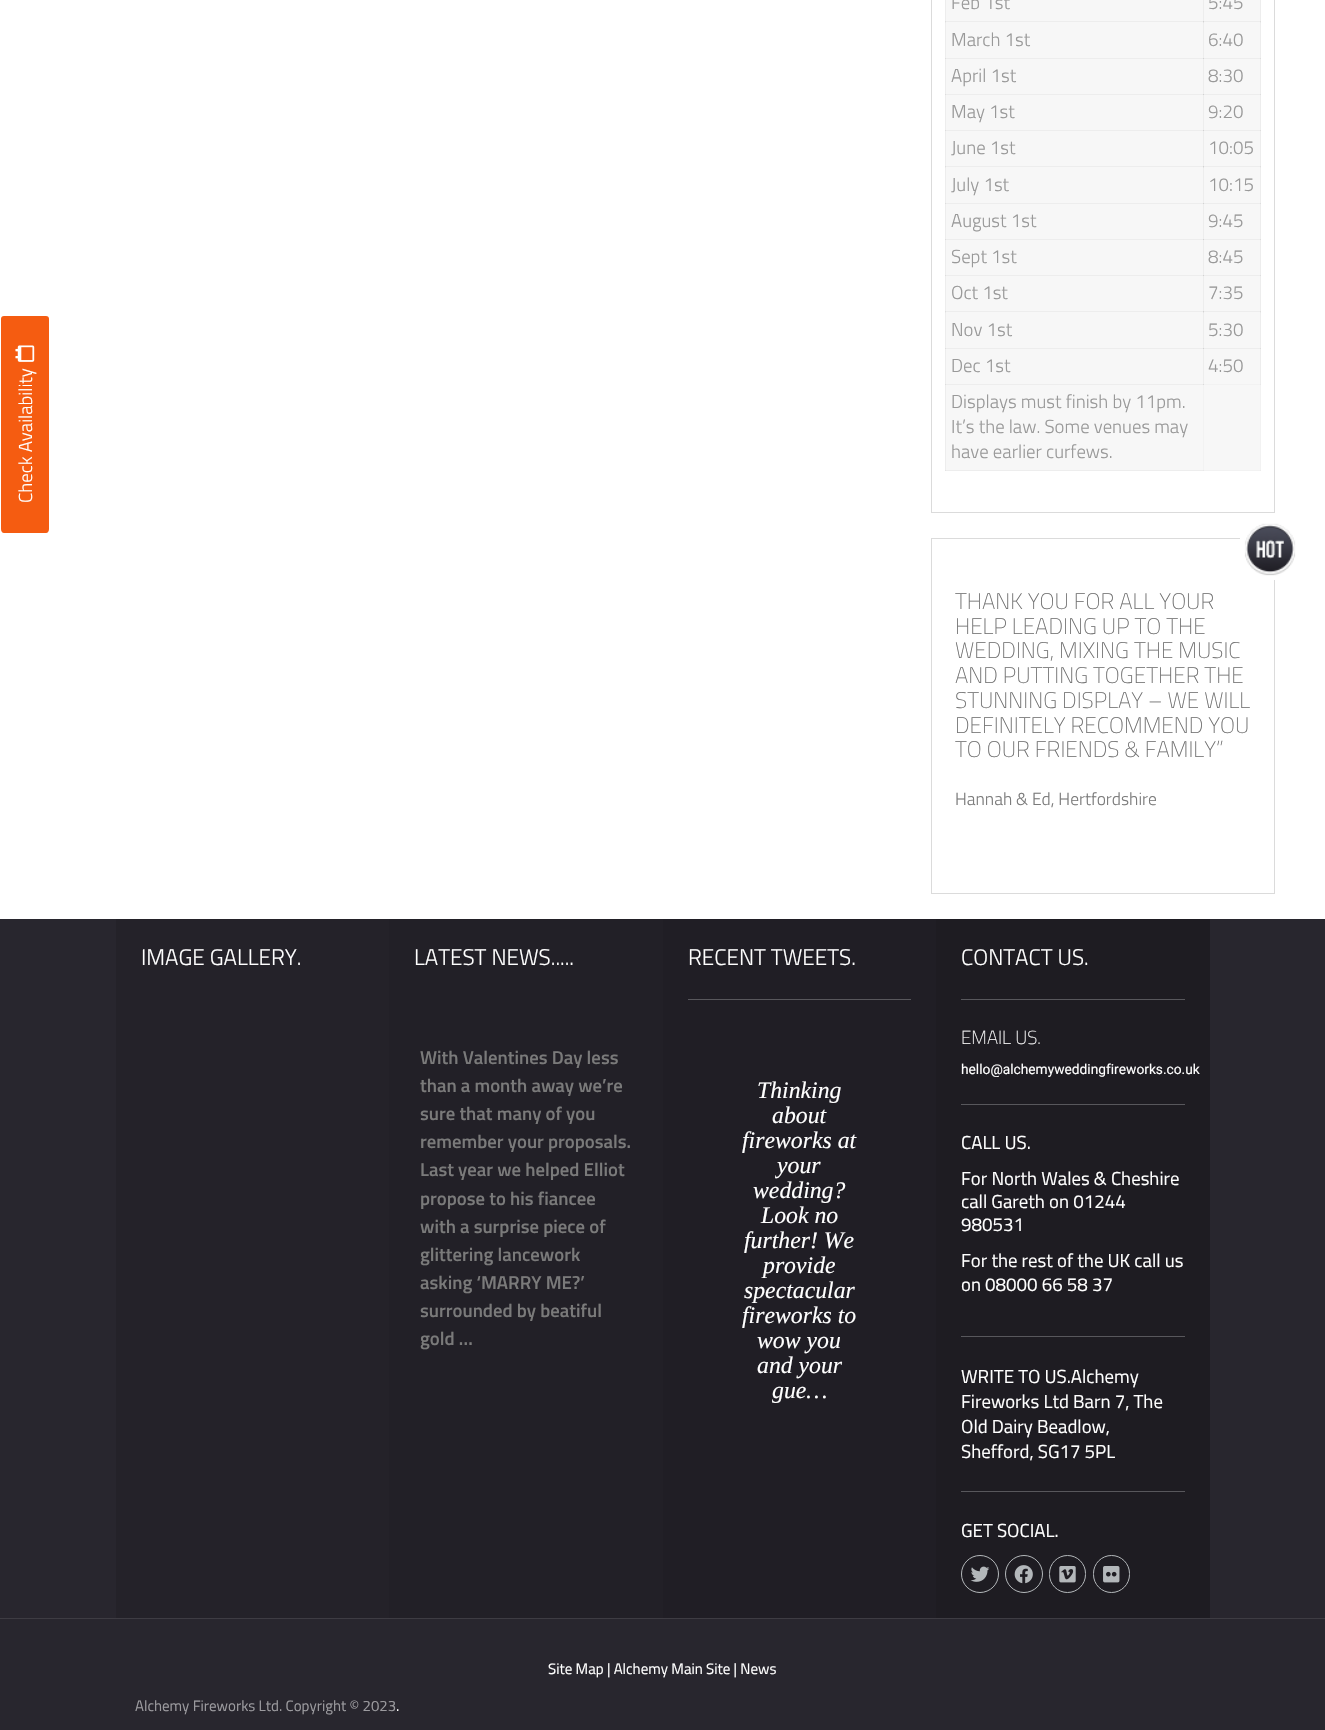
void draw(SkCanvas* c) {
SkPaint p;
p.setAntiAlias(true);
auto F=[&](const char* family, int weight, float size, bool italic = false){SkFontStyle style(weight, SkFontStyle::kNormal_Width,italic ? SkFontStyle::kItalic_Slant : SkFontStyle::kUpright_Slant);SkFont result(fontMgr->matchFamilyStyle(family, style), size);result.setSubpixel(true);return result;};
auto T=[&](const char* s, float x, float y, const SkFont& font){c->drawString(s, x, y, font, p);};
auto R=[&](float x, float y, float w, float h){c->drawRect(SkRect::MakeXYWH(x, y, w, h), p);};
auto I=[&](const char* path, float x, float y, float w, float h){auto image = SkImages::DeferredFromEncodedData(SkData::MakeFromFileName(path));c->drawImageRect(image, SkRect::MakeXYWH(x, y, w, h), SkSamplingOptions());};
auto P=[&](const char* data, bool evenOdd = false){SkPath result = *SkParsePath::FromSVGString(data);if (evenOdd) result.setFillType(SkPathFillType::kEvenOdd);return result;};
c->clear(0xffffffff);
p.setStroke(true);
p.setStrokeWidth(1);
p.setColor(0xffdbdbdb);
c->drawRect(SkRect::MakeXYWH(931.5,-.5,343,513),p);
p.setStroke(false);
p.setColor(0xfff7f7f7);
R(946,0,314,470);
p.setColor(0xfff2f2f2);
R(1203,384,1,87);
p.setColor(0xffededed);
R(1203,0,1,23);
R(945,21,259,1);
R(1203,21,1,38);
p.setColor(0xffe3e3e3);
R(1203,21,1,2);
p.setColor(0xffededed);
R(1203,21,58,1);
p.setColor(0xffd2d2d2);
R(1203,21,1,1);
p.setColor(0xffededed);
R(945,58,259,1);
R(1203,58,1,37);
R(1203,58,58,1);
p.setColor(0xffd2d2d2);
R(1203,58,1,1);
p.setColor(0xffededed);
R(945,94,259,1);
R(1203,94,1,37);
R(1203,94,58,1);
p.setColor(0xffd2d2d2);
R(1203,94,1,1);
p.setColor(0xffededed);
R(945,130,259,1);
R(1203,130,1,38);
R(1203,130,58,1);
p.setColor(0xffd2d2d2);
R(1203,130,1,1);
p.setColor(0xffededed);
R(945,166,259,1);
R(1203,166,1,38);
p.setColor(0xffe3e3e3);
R(1203,166,1,2);
p.setColor(0xffededed);
R(1203,166,58,1);
p.setColor(0xffd2d2d2);
R(1203,166,1,1);
p.setColor(0xffededed);
R(945,203,259,1);
R(1203,203,1,37);
R(1203,203,58,1);
p.setColor(0xffd2d2d2);
R(1203,203,1,1);
p.setColor(0xffededed);
R(945,239,259,1);
R(1203,239,1,37);
R(1203,239,58,1);
p.setColor(0xffd2d2d2);
R(1203,239,1,1);
p.setColor(0xffededed);
R(945,275,259,1);
R(1203,275,1,38);
R(1203,275,58,1);
p.setColor(0xffd2d2d2);
R(1203,275,1,1);
p.setColor(0xffededed);
R(945,311,259,1);
R(1203,311,1,38);
p.setColor(0xffe3e3e3);
R(1203,311,1,2);
p.setColor(0xffededed);
R(1203,311,58,1);
p.setColor(0xffd2d2d2);
R(1203,311,1,1);
p.setColor(0xffededed);
R(945,384,259,1);
R(945,348,259,1);
R(1203,348,1,37);
p.setColor(0xfff2f2f2);
R(1203,384,58,1);
p.setColor(0xffdadada);
R(1203,384,1,1);
p.setColor(0xffededed);
R(1203,348,58,1);
p.setColor(0xffd2d2d2);
R(1203,348,1,1);
p.setColor(0xffededed);
R(945,384,1,87);
R(945,0,1,385);
p.setColor(0xffe8e8e8);
R(945,21,1,2);
p.setColor(0xffdedede);
R(945,21,1,1);
R(945,58,1,1);
R(945,94,1,1);
R(945,130,1,1);
p.setColor(0xffe8e8e8);
R(945,166,1,2);
p.setColor(0xffdedede);
R(945,166,1,1);
R(945,203,1,1);
R(945,239,1,1);
R(945,275,1,1);
p.setColor(0xffe8e8e8);
R(945,311,1,2);
p.setColor(0xffdedede);
R(945,311,1,1);
R(945,384,1,1);
R(945,348,1,1);
p.setColor(0xfff2f2f2);
R(1204,470,57,1);
p.setColor(0xffededed);
R(945,470,259,1);
p.setColor(0xffe8e8e8);
R(1203,470,1,1);
p.setColor(0xffe3e3e3);
R(945,470,1,1);
p.setColor(0xfff2f2f2);
R(1260,385,1,86);
p.setColor(0xffededed);
R(1260,0,1,385);
p.setColor(0xffe8e8e8);
R(1260,21,1,2);
p.setColor(0xffdedede);
R(1260,21,1,1);
R(1260,58,1,1);
R(1260,94,1,1);
R(1260,130,1,1);
p.setColor(0xffe8e8e8);
R(1260,166,1,2);
p.setColor(0xffdedede);
R(1260,166,1,1);
R(1260,203,1,1);
R(1260,239,1,1);
R(1260,275,1,1);
p.setColor(0xffe8e8e8);
R(1260,311,1,2);
p.setColor(0xffdedede);
R(1260,311,1,1);
p.setColor(0xffe8e8e8);
R(1260,384,1,1);
p.setColor(0xffdedede);
R(1260,348,1,1);
p.setColor(0xffededed);
R(1260,470,1,1);
auto f1 = F("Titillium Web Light",300,18.75);
p.setColor(0xff999999);
T("Feb 1st",951,9,f1);
T("5:45",1208,9,f1);
T("March 1st",951,46,f1);
T("6:40",1208,46,f1);
T("April 1st",951,82,f1);
T("8:30",1208,82,f1);
T("May 1st",951,118,f1);
T("9:20",1208,118,f1);
T("June 1st",951,154,f1);
T("10:05",1208,154,f1);
T("July 1st",951,191,f1);
T("10:15",1208,191,f1);
T("August 1st",951,227,f1);
T("9:45",1208,227,f1);
T("Sept 1st",951,263,f1);
T("8:45",1208,263,f1);
T("Oct 1st",951,299,f1);
T("7:35",1208,299,f1);
T("Nov 1st",951,336,f1);
T("5:30",1208,336,f1);
T("Dec 1st",951,372,f1);
T("4:50",1208,372,f1);
T("Displays must finish by 11pm.",951,408,f1);
T("It’s the law. Some venues may",951,433,f1);
T("have earlier curfews.",951,458,f1);
p.setStroke(true);
p.setColor(0xffdbdbdb);
c->drawRect(SkRect::MakeXYWH(931.5,538.5,343,355),p);
I("1.png",1240,523,56,57);
auto f2 = F("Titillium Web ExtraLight",200,22.5);
p.setStroke(false);
p.setColor(0xff707070);
T("THANK YOU FOR ALL YOUR",955,609,f2);
T("HELP LEADING UP TO THE",955,634,f2);
T("WEDDING, MIXING THE MUSIC",955,658,f2);
T("AND PUTTING TOGETHER THE",955,683,f2);
T("STUNNING DISPLAY – WE WILL",955,708,f2);
T("DEFINITELY RECOMMEND YOU",955,733,f2);
T("TO OUR FRIENDS & FAMILY”",955,757,f2);
auto f3 = F("Titillium Web Light",300,17.5);
p.setColor(0xff7a7a7a);
T("Hannah & Ed, Hertfordshire",955,805,f3);
p.setColor(0xff28262e);
R(0,1619,1325,111);
p.setColor(0xff3e3c43);
R(0,1618,1325,1);
p.setColor(0xfff55c11);
c->drawPath(P("M1 529v-210c0-2 1-3 3-3h42c2 0 3 1 3 3v210c0 2-1 4-3 4h-42c-2 0-3-2-3-4z"),p);
I("2.png",15,345,20,17);
p.setColor(0xffffffff);
c->save();
c->rotate(-90,32,503);
T("Check Availability",32,503,f1);
c->restore();
auto f4 = F("Titillium Web",400,15);
T("Site Map | Alchemy Main Site | News",548,1674,f4);
p.setColor(0xff9c9b9f);
T("Alchemy Fireworks Ltd. Copyright © 2023",135,1711,f4);
p.setColor(0xffffffff);
T(".",396,1711,f4);
p.setColor(0xff28262e);
R(0,919,1325,699);
p.setColor(0xff242229);
R(116,919,273,699);
auto f5 = F("Titillium Web Light",300,22.5);
p.setColor(0xffffffff);
T("IMAGE GALLERY.",141,965,f5);
p.setColor(0xff222027);
R(389,919,274,699);
p.setColor(0xffffffff);
T("LATEST NEWS.....",414,965,f5);
auto f6 = F("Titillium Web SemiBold",600,18.75);
p.setColor(0xff7a7a7a);
T("With Valentines Day less",420,1064,f6);
T("than a month away we’re",420,1092,f6);
T("sure that many of you",420,1120,f6);
T("remember your proposals.",420,1148,f6);
T("Last year we helped Elliot",420,1176,f6);
T("propose to his fiancee",420,1205,f6);
T("with a surprise piece of",420,1233,f6);
T("glittering lancework",420,1261,f6);
T("asking ‘MARRY ME?’",420,1289,f6);
T("surrounded by beatiful",420,1317,f6);
T("gold …",420,1345,f6);
p.setColor(0xff201e25);
R(663,919,273,699);
p.setColor(0xffffffff);
T("RECENT TWEETS.",688,965,f5);
p.setColor(0xff58575c);
R(688,999,223,1);
auto f7 = F("Liberation Serif",400,23.75,true);
p.setColor(0xffffffff);
T("Thinking",757,1098,f7);
T("about",772,1123,f7);
T("fireworks at",742,1148,f7);
T("your",777,1173,f7);
T("wedding?",753,1198,f7);
T("Look no",761,1223,f7);
T("further! We",744,1248,f7);
T("provide",763,1273,f7);
T("spectacular",744,1298,f7);
T("fireworks to",742,1323,f7);
T("wow you",757,1348,f7);
T("and your",757,1373,f7);
T("gue…",772,1398,f7);
p.setColor(0xff1e1c22);
R(936,919,274,699);
p.setColor(0xffffffff);
T("CONTACT US.",961,965,f5);
p.setColor(0xff58575c);
R(961,999,224,1);
auto f8 = F("Titillium Web ExtraLight",200,18.75);
p.setColor(0xffffffff);
T("EMAIL US.",961,1044,f8);
auto f9 = F("Roboto",400,13.75);
T("hello@alchemyweddingfireworks.co.uk",961,1074,f9);
p.setColor(0xff58575c);
R(961,1104,224,1);
auto f10 = F("Titillium Web",400,18.75);
p.setColor(0xffffffff);
T("CALL US.",961,1149,f10);
T("For North Wales & Cheshire",961,1185,f10);
T("call Gareth on 01244",961,1208,f10);
T("980531",961,1231,f10);
T("For the rest of the UK call us",961,1267,f10);
T("on 08000 66 58 37",961,1291,f10);
p.setColor(0xff58575c);
R(961,1336,224,1);
p.setColor(0xffffffff);
T("WRITE TO US.Alchemy",961,1383,f10);
T("Fireworks Ltd Barn 7, The",961,1408,f10);
T("Old Dairy Beadlow,",961,1433,f10);
T("Shefford, SG17 5PL",961,1458,f10);
p.setColor(0xff58575c);
R(961,1491,224,1);
p.setColor(0xffffffff);
T("GET SOCIAL.",961,1537,f10);
p.setStroke(true);
p.setColor(0xffb3b7ba);
c->drawCircle(980,1574,18.5,p);
I("3.png",970,1566,20,16);
c->drawCircle(1024,1574,18.5,p);
I("4.png",1014,1565,19,19);
c->drawRoundRect(SkRect::MakeXYWH(1049.5,1555.5,36,37),18,18,p);
I("5.png",1059,1566,17,17);
c->drawRoundRect(SkRect::MakeXYWH(1093.5,1555.5,36,37),18,18,p);
I("6.png",1103,1566,17,17);
}
